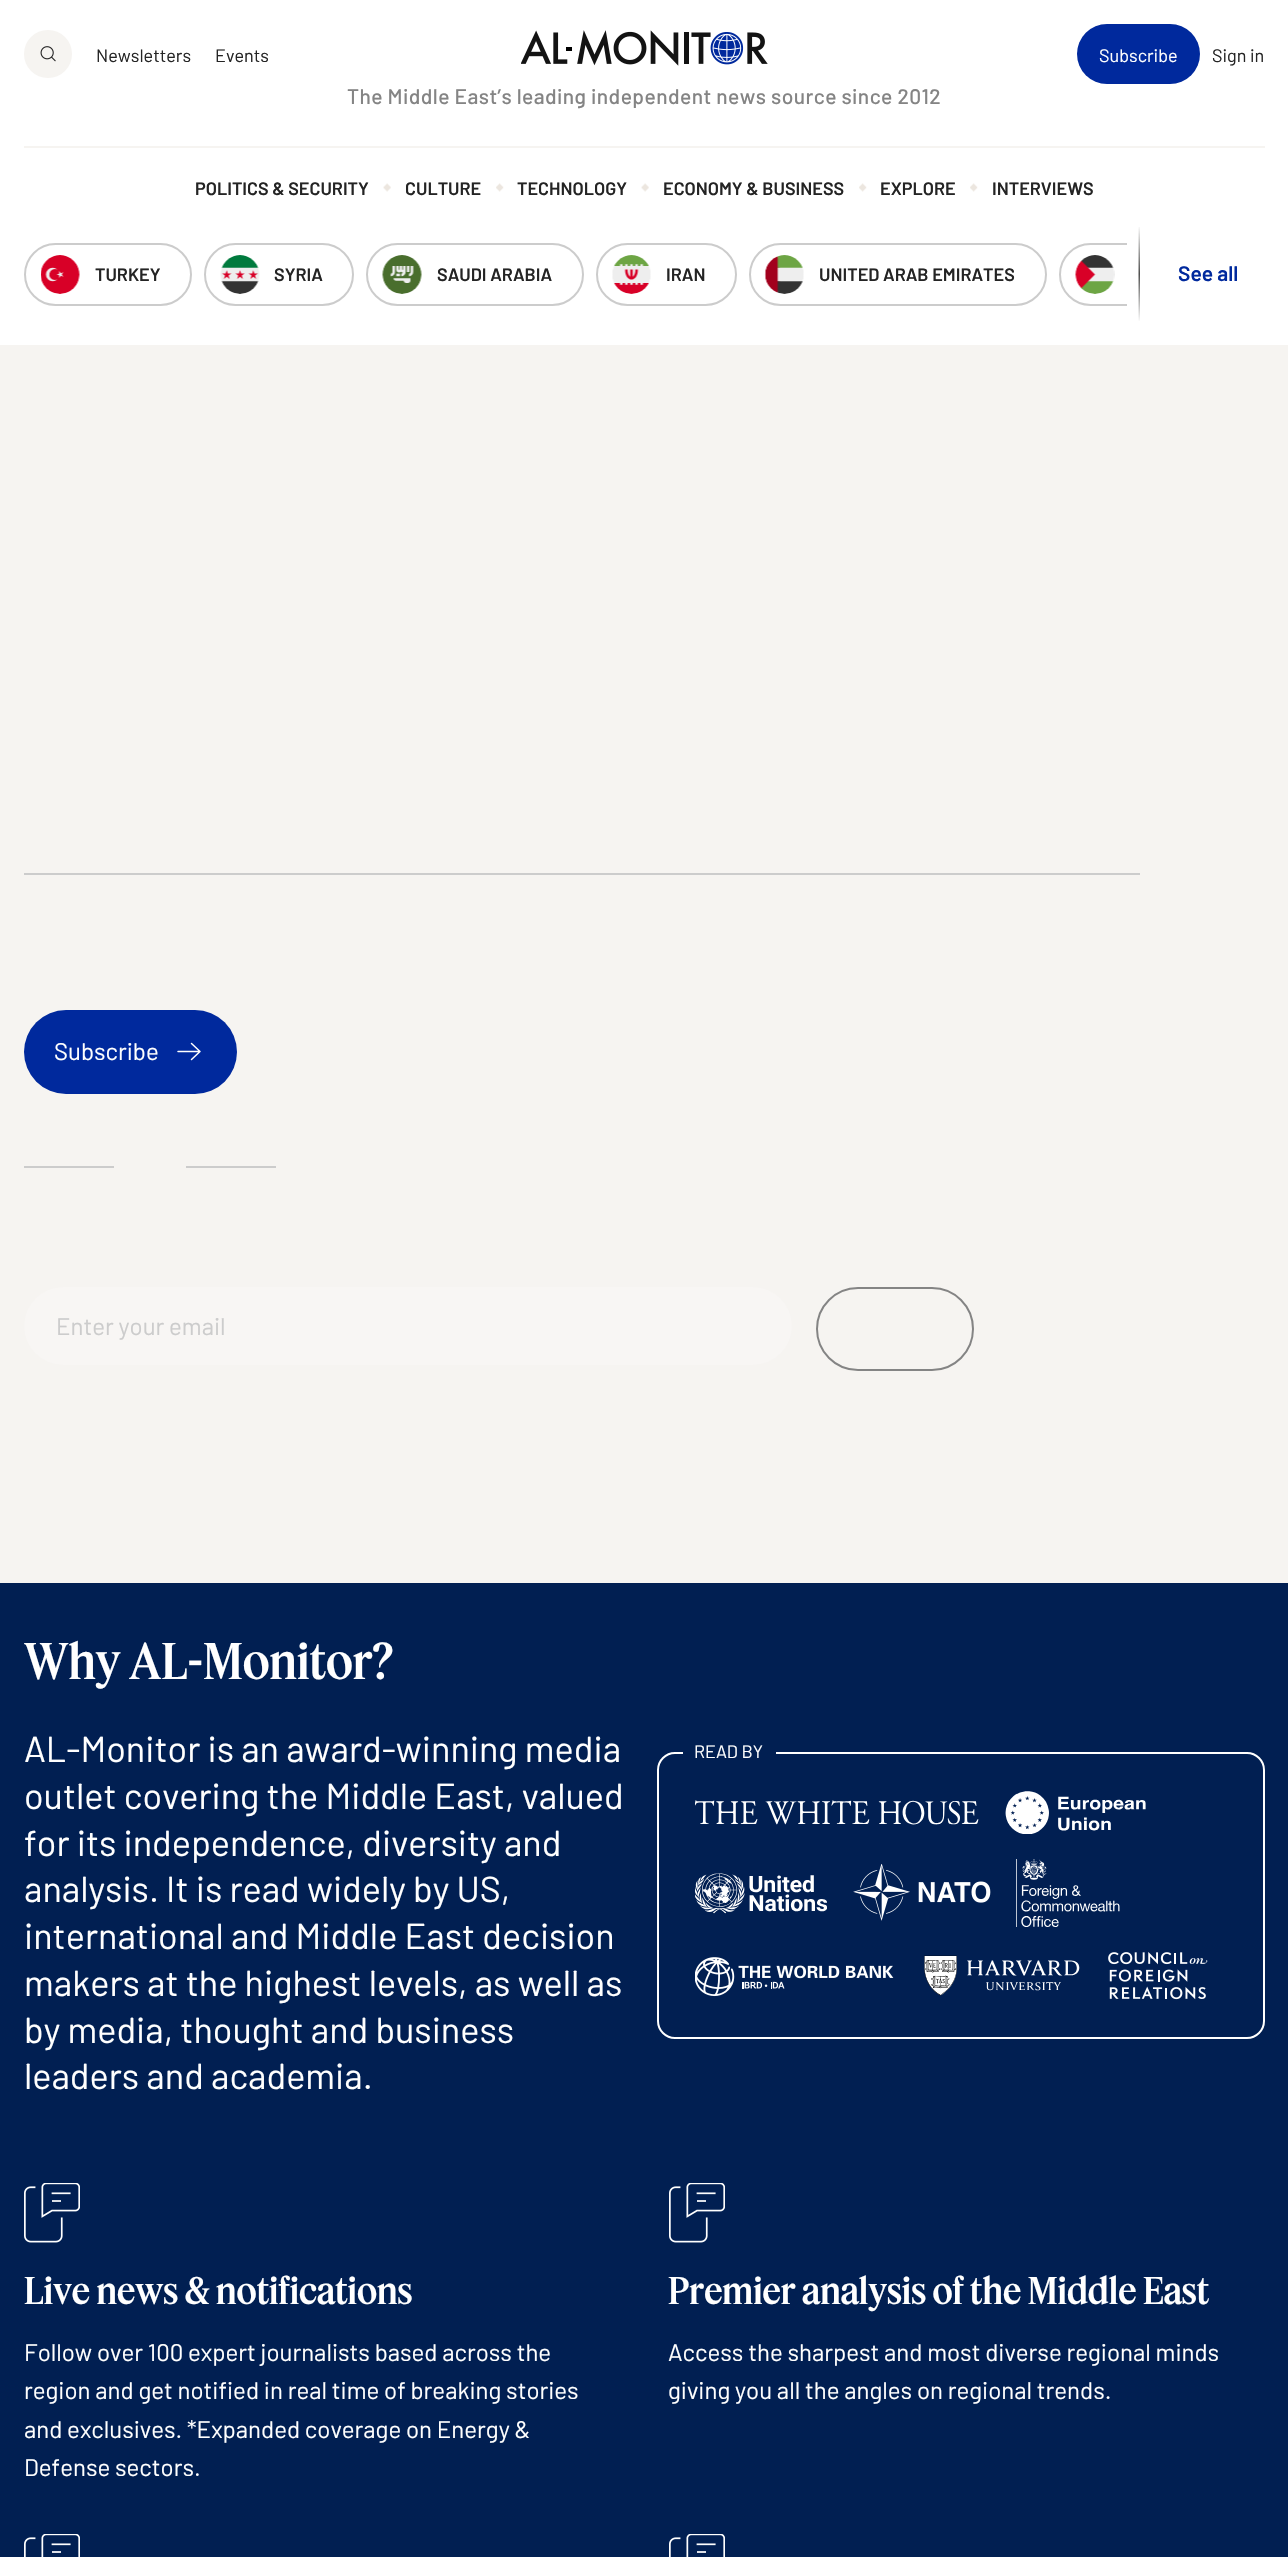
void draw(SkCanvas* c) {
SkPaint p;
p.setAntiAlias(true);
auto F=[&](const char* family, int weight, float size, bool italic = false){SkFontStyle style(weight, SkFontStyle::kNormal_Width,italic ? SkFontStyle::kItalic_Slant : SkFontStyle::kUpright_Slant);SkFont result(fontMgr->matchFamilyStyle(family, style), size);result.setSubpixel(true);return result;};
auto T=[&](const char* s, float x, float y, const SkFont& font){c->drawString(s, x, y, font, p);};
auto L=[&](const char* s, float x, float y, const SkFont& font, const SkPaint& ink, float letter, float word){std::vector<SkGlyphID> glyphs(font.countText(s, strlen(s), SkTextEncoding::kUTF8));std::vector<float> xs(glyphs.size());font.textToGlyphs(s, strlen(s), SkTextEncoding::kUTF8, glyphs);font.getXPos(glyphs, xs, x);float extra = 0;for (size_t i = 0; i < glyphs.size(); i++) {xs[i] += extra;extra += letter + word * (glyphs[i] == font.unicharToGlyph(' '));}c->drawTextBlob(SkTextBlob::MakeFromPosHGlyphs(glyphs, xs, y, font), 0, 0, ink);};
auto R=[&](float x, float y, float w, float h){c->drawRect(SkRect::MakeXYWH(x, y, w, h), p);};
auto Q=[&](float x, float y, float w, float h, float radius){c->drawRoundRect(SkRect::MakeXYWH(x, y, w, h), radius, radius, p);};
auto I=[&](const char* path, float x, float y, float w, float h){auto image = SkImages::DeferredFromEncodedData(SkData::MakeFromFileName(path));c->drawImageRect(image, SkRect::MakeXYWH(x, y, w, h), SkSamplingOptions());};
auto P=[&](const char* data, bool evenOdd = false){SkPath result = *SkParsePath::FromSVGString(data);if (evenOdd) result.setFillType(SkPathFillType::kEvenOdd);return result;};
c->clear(0xfff6f4f1);
p.setColor(0xffffffff);
R(0,0,1288,345);
p.setColor(0xfff6f4f1);
c->drawCircle(48,54,24,p);
I("1.png",40,46,16,16);
auto f1 = F("Barlow",400,18);
p.setColor(0xff242424);
T("Newsletters",96,62,f1);
T("Events",215,62,f1);
I("2.png",521,30,247,36);
p.setColor(0xff00299d);
Q(1077,24,123,60,30);
p.setColor(0xffffffff);
T("Subscribe",1099,62,f1);
p.setColor(0xff242424);
T("Sign in",1212,62,f1);
p.setColor(0xfff6f4f1);
R(24,146,1241,2);
auto f2 = F("Barlow",500,21);
p.setColor(0xff848484);
L("The Middle Eastʼs leading independent news source since 2012",347,104,f2,p,.42,0);
auto f3 = F("Barlow",600,18);
p.setColor(0xff242424);
T("POLITICS & SECURITY",195,195,f3);
I("3.png",383,183,8,9);
T("CULTURE",405,195,f3);
I("4.png",496,183,8,9);
T("TECHNOLOGY",517,195,f3);
I("3.png",641,183,8,9);
T("ECONOMY & BUSINESS",663,195,f3);
I("4.png",859,183,8,9);
T("EXPLORE",880,195,f3);
I("4.png",970,183,8,9);
T("INTERVIEWS",992,195,f3);
I("5.png",1138,227,2,94);
p.setStroke(true);
p.setStrokeWidth(2);
p.setColor(0xffcccccc);
c->drawRoundRect(SkRect::MakeXYWH(25,244,166,61),30.5,30.5,p);
I("6.png",41,255,39,39);
p.setStroke(false);
p.setColor(0xff242424);
T("TURKEY",95,281,f3);
p.setStroke(true);
p.setColor(0xffcccccc);
c->drawRoundRect(SkRect::MakeXYWH(205,244,148,61),30.5,30.5,p);
I("7.png",220,255,40,39);
p.setStroke(false);
p.setColor(0xff242424);
T("SYRIA",274,281,f3);
p.setStroke(true);
p.setColor(0xffcccccc);
c->drawRoundRect(SkRect::MakeXYWH(367,244,216,61),30.5,30.5,p);
I("8.png",382,255,40,39);
p.setStroke(false);
p.setColor(0xff242424);
T("SAUDI ARABIA",437,281,f3);
p.setStroke(true);
p.setColor(0xffcccccc);
c->drawRoundRect(SkRect::MakeXYWH(597,244,139,61),30.5,30.5,p);
I("9.png",612,255,39,39);
p.setStroke(false);
p.setColor(0xff242424);
T("IRAN",666,281,f3);
p.setStroke(true);
p.setColor(0xffcccccc);
c->drawRoundRect(SkRect::MakeXYWH(750,244,296,61),30.5,30.5,p);
I("10.png",764,255,40,39);
p.setStroke(false);
p.setColor(0xff242424);
T("UNITED ARAB EMIRATES",819,281,f3);
c->save();
c->clipRect(SkRect::MakeXYWH(24,243,1103,63));
p.setStroke(true);
p.setColor(0xffcccccc);
c->drawRoundRect(SkRect::MakeXYWH(1060,244,192,61),30.5,30.5,p);
c->restore();
I("11.png",1075,255,40,39);
auto f4 = F("Barlow",600,21);
p.setStroke(false);
p.setColor(0xff00299d);
T("See all",1178,281,f4);
p.setColor(0xffcccccc);
R(24,873,1116,2);
p.setColor(0xff00299d);
Q(24,1010,213,84,42);
auto f5 = F("Barlow",400,24);
p.setColor(0xffffffff);
T("Subscribe",54,1060,f5);
p.setStroke(true);
p.setStrokeWidth(1.5);
p.setStrokeCap(SkPaint::kRound_Cap);
p.setStrokeJoin(SkPaint::kRound_Join);
c->drawPath(P("M191.5 1043.5l8.5 8l-8.5 8m8-8h-21.5"),p);
p.setStroke(false);
p.setColor(0xffcccccc);
R(24,1166,90,2);
R(186,1166,90,2);
p.setColor(0xfff8f6f4);
Q(24,1287,768,78,39);
p.setColor(0xffcccccc);
T("Enter your email",56,1335,f5);
p.setStroke(true);
p.setStrokeWidth(2);
p.setStrokeCap(SkPaint::kButt_Cap);
p.setStrokeJoin(SkPaint::kMiter_Join);
p.setColor(0xff848484);
c->drawRoundRect(SkRect::MakeXYWH(817,1288,156,82),41,41,p);
p.setStroke(false);
p.setColor(0xff011f52);
R(0,1583,1288,974);
auto f6 = F("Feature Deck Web",500,48);
p.setColor(0xffffffff);
T("Why AL-Monitor?",24,1679,f6);
auto f7 = F("Barlow",400,36);
T("AL-Monitor is an award-winning media",24,1762,f7);
T("outlet covering the Middle East, valued",24,1809,f7);
T("for its independence, diversity and",24,1856,f7);
T("analysis. It is read widely by US,",24,1902,f7);
T("international and Middle East decision",24,1949,f7);
T("makers at the highest levels, as well as",24,1996,f7);
T("by media, thought and business",24,2043,f7);
T("leaders and academia.",24,2089,f7);
p.setStroke(true);
c->drawRoundRect(SkRect::MakeXYWH(658,1753,606,285),17,17,p);
p.setStroke(false);
p.setColor(0xff011f52);
R(683,1752,93,2);
p.setColor(0xffffffff);
T("READ BY",694,1758,f1);
I("12.png",695,1800,284,25);
I("13.png",1005,1791,141,43);
I("14.png",695,1873,132,41);
I("15.png",853,1864,138,57);
I("16.png",1016,1859,104,68);
I("17.png",695,1957,199,40);
I("18.png",924,1955,156,41);
I("19.png",1108,1952,100,48);
I("20.png",24,2183,56,60);
auto f8 = F("Feature Deck Web",500,36);
T("Live news & notifications",24,2304,f8);
T("Follow over 100 expert journalists based across the",24,2361,f5);
T("region and get notified in real time of breaking stories",24,2399,f5);
T("and exclusives. *Expanded coverage on Energy &",24,2438,f5);
T("Defense sectors.",24,2476,f5);
I("20.png",669,2183,56,60);
T("Premier analysis of the Middle East",668,2304,f8);
T("Access the sharpest and most diverse regional minds",668,2361,f5);
T("giving you all the angles on regional trends.",668,2399,f5);
I("21.png",24,2534,56,23);
I("21.png",669,2534,56,23);
}
